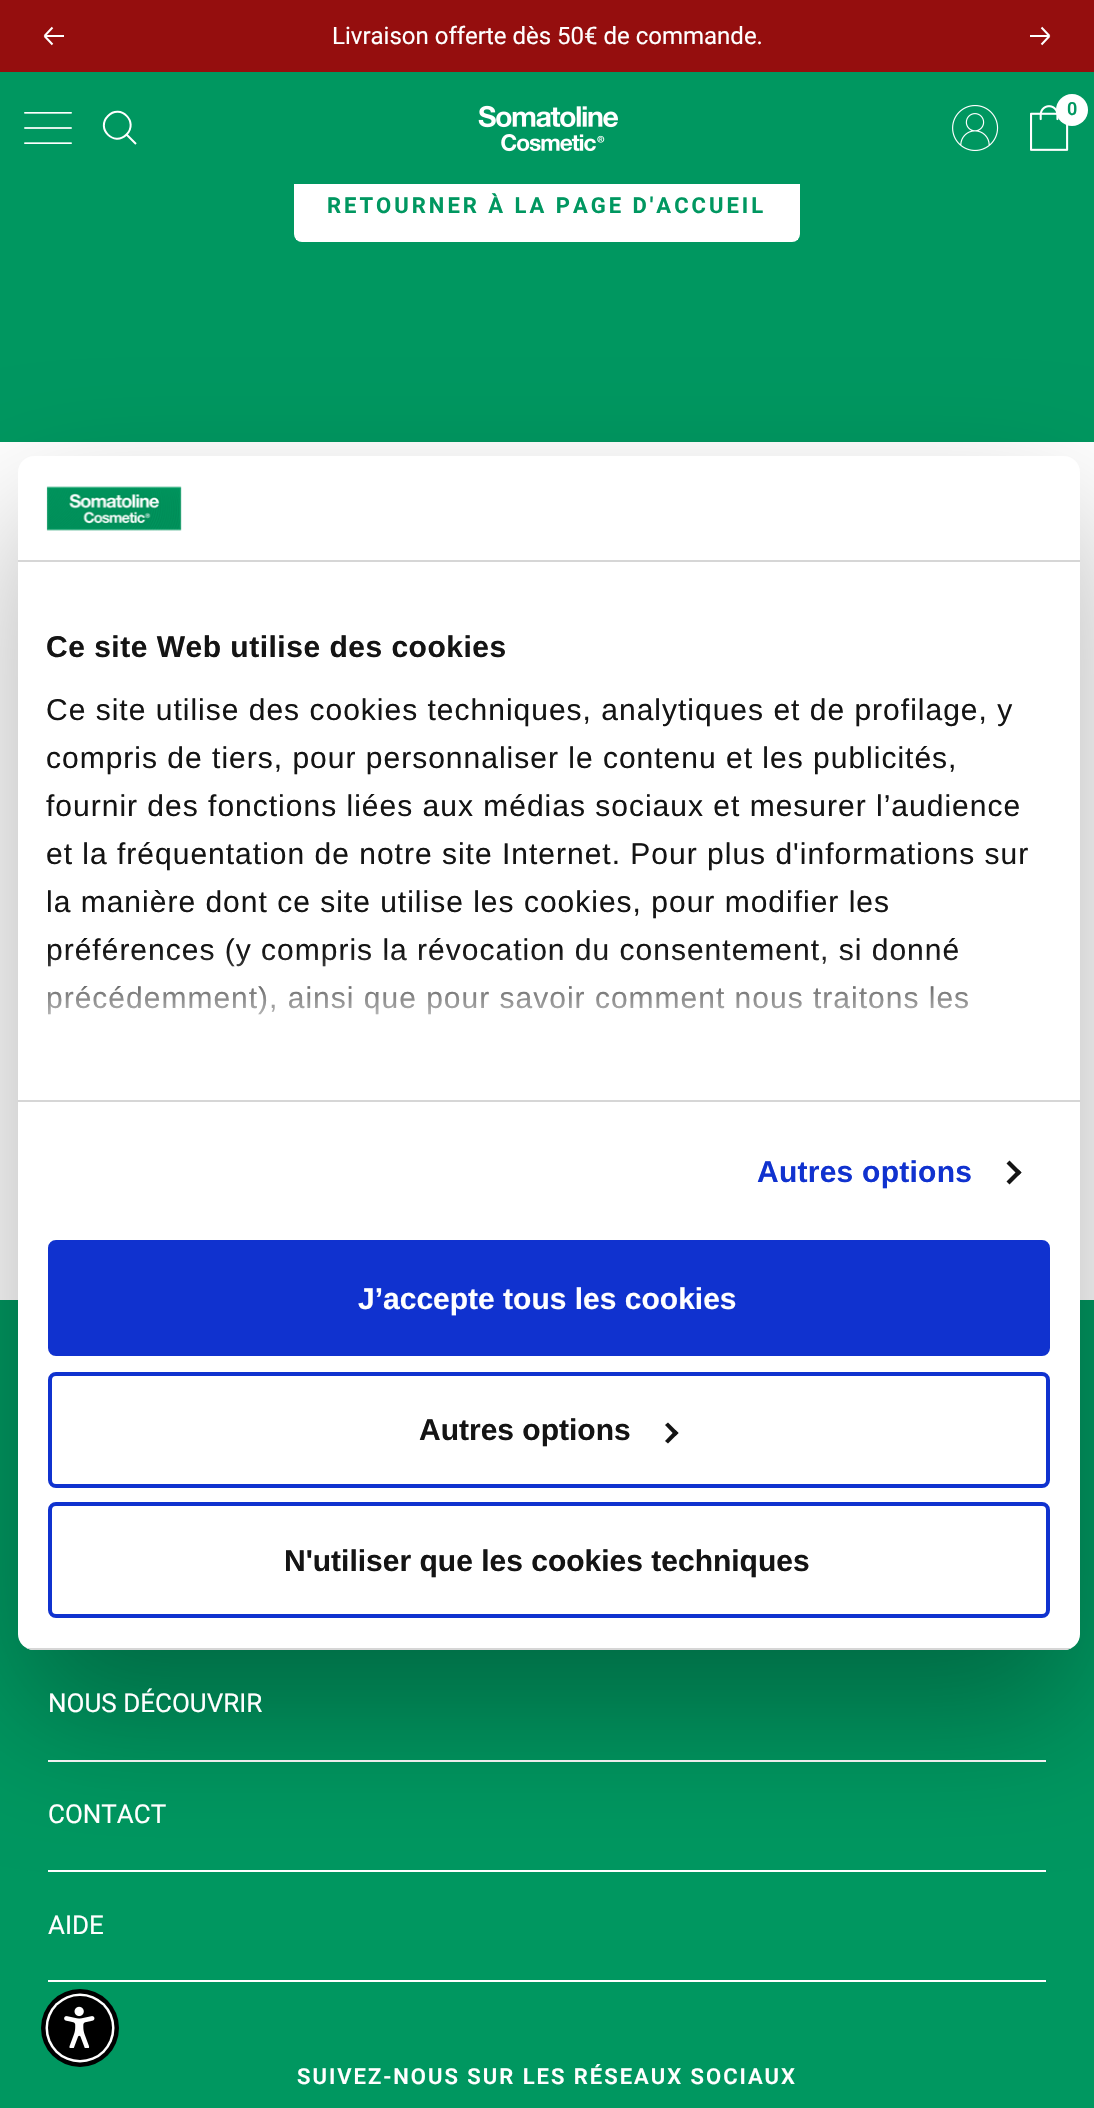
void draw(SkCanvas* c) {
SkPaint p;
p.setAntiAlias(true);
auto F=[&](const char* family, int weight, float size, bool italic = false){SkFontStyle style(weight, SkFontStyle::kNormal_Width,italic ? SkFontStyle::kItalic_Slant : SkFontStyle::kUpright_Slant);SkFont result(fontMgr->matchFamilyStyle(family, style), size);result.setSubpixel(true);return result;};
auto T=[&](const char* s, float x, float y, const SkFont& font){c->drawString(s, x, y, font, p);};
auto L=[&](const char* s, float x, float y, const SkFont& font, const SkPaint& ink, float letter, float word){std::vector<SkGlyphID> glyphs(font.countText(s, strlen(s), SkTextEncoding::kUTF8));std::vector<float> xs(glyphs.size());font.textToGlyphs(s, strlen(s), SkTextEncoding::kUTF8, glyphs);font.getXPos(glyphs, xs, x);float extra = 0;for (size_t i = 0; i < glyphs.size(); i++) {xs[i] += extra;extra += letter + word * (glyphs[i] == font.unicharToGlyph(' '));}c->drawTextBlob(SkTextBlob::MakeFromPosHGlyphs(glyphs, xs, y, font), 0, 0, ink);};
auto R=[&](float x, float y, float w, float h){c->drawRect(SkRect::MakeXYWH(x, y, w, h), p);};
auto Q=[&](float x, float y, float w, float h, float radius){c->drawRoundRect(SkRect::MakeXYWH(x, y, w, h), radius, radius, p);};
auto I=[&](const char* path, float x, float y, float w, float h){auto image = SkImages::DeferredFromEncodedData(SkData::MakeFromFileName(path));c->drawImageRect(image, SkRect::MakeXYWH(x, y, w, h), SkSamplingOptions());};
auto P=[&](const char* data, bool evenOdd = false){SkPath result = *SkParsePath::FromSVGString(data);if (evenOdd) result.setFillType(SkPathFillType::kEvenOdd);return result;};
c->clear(0xffffffff);
p.setColor(0xff950e0e);
R(0,0,1094,72);
p.setStroke(true);
p.setStrokeWidth(2);
p.setColor(0xffffffff);
c->drawPath(P("M64 36h-19.5m0 0l8 8.5m-8-8.5l8-8.5"),p);
auto f1 = F("Roboto",400,24);
p.setStroke(false);
T("Livraison offerte dès 50€ de commande.",332,44,f1);
p.setStroke(true);
c->drawPath(P("M1030 36h19.5m0 0l-8 8.5m8-8.5l-8-8.5"),p);
p.setStroke(false);
p.setColor(0xff009760);
R(0,184,1094,258);
p.setColor(0xffffffff);
R(296,184,502,56);
p.setStroke(true);
c->drawRoundRect(SkRect::MakeXYWH(295,169,504,72),7,7,p);
p.setStroke(false);
p.setColor(0xff009760);
R(0,72,1094,112);
I("1.png",24,112,48,32);
p.setStroke(true);
p.setColor(0xffffffff);
c->drawPath(P("M126.5 134.5c12.5-12.5-6-31-18.5-18.5c-12.5 12.5 6 31 18.5 18.5zm0 0l9.5 9.5"),p);
I("2.png",478,105,140,47);
I("3.png",952,105,47,46);
I("4.png",1030,105,39,46);
p.setStroke(false);
c->drawCircle(1072,110,16,p);
auto f2 = F("Roboto",600,18);
p.setColor(0xff009760);
T("0",1067,115,f2);
auto f3 = F("Roboto",700,22);
L("RETOURNER À LA PAGE D'ACCUEIL",327,213,f3,p,3,0);
R(0,1300,1094,808);
p.setColor(0xffffffff);
R(48,1760,998,2);
R(48,1870,998,2);
p.setColor(0x4d000000);
p.setMaskFilter(SkMaskFilter::MakeBlur(kNormal_SkBlurStyle, 68));
c->drawRoundRect(SkRect::MakeXYWH(18,520,1062,1194),16,16,p);
p.setMaskFilter(nullptr);
p.setColor(0xffffffff);
Q(18,456,1062,1194,16);
p.setColor(0xffd6d6d6);
R(18,560,1062,2);
I("5.png",46,486,136,45);
R(18,1100,1062,2);
auto f4 = F("Liberation Sans",700,30);
p.setColor(0xff141414);
L("Ce site Web utilise des cookies",46,657,f4,p,.5,0);
auto f5 = F("Liberation Sans",400,30);
L("Ce site utilise des cookies techniques, analytiques et de profilage, y",46,720,f5,p,1,0);
L("compris de tiers, pour personnaliser le contenu et les publicités,",46,768,f5,p,1,0);
L("fournir des fonctions liées aux médias sociaux et mesurer l’audience",46,816,f5,p,1,0);
L("et la fréquentation de notre site Internet. Pour plus d'informations sur",46,864,f5,p,1,0);
L("la manière dont ce site utilise les cookies, pour modifier les",46,912,f5,p,1,0);
L("préférences (y compris la révocation du consentement, si donné",46,960,f5,p,1,0);
L("précédemment), ainsi que pour savoir comment nous traitons les",46,1008,f5,p,1,0);
{
const SkColor colors[] = {0xffffffff,0xccffffff,0x00ffffff};
const float stops[] = {0,.5,1};
const SkPoint ends[] = {{535,1101}, {535,951}};
p.setShader(SkGradientShader::MakeLinear(ends, colors, stops, 3, SkTileMode::kClamp));
p.setAlpha(255);
}
R(47,953,921,62);
p.setShader(nullptr);
p.setColor(0xff1032cf);
L("Autres options",757,1182,f4,p,.25,0);
p.setColor(0xff141414);
c->drawPath(P("M1009.5 1160.5l12 12l-3 3l-12-12z"),p);
c->drawPath(P("M1018.5 1169.5l3 3l-12 12l-3-3z"),p);
c->save();
c->clipPath(P("M34 456h1030c9 0 16 7 16 16v1162c0 9-7 16-16 16h-1030c-9 0-16-7-16-16v-1162c0-9 7-16 16-16z"),true);
p.setColor(0xffd6d6d6);
R(18,1648,1062,2);
c->restore();
p.setColor(0xff1032cf);
c->drawRoundRect(SkRect::MakeXYWH(50,1242,998,112),6,6,p);
p.setStroke(true);
p.setStrokeWidth(4);
c->drawRoundRect(SkRect::MakeXYWH(50,1242,998,112),6,6,p);
p.setStroke(false);
p.setColor(0xffffffff);
T("J’accepte tous les cookies",358,1309,f4);
p.setStroke(true);
p.setColor(0xff1032cf);
c->drawRoundRect(SkRect::MakeXYWH(50,1374,998,112),6,6,p);
p.setStroke(false);
p.setColor(0xff141414);
T("Autres options",419,1440,f4);
c->drawPath(P("M668 1422.5l10.5 10.5l-3 3l-10.5-11z"),p);
c->drawPath(P("M675.5 1430l3 3l-10.5 10.5l-3-2.5z"),p);
p.setStroke(true);
p.setColor(0xff1032cf);
c->drawRoundRect(SkRect::MakeXYWH(50,1504,998,112),6,6,p);
p.setStroke(false);
p.setColor(0xff141414);
T("N'utiliser que les cookies techniques",284,1571,f4);
auto f6 = F("Roboto",400,26);
p.setColor(0xffffffff);
T("NOUS DÉCOUVRIR",48,1712,f6);
T("CONTACT",48,1823,f6);
R(48,1980,998,2);
T("AIDE",48,1934,f6);
auto f7 = F("Roboto",600,22);
L("SUIVEZ-NOUS SUR LES RÉSEAUX SOCIAUX",297,2084,f7,p,2,0);
p.setColor(0xff000000);
c->drawCircle(80,2028,39,p);
p.setColor(0xffffffff);
c->drawCircle(80,2028,34.5,p);
p.setColor(0xff000000);
c->drawCircle(80,2028,32,p);
I("6.png",64,2006,31,42);
}
